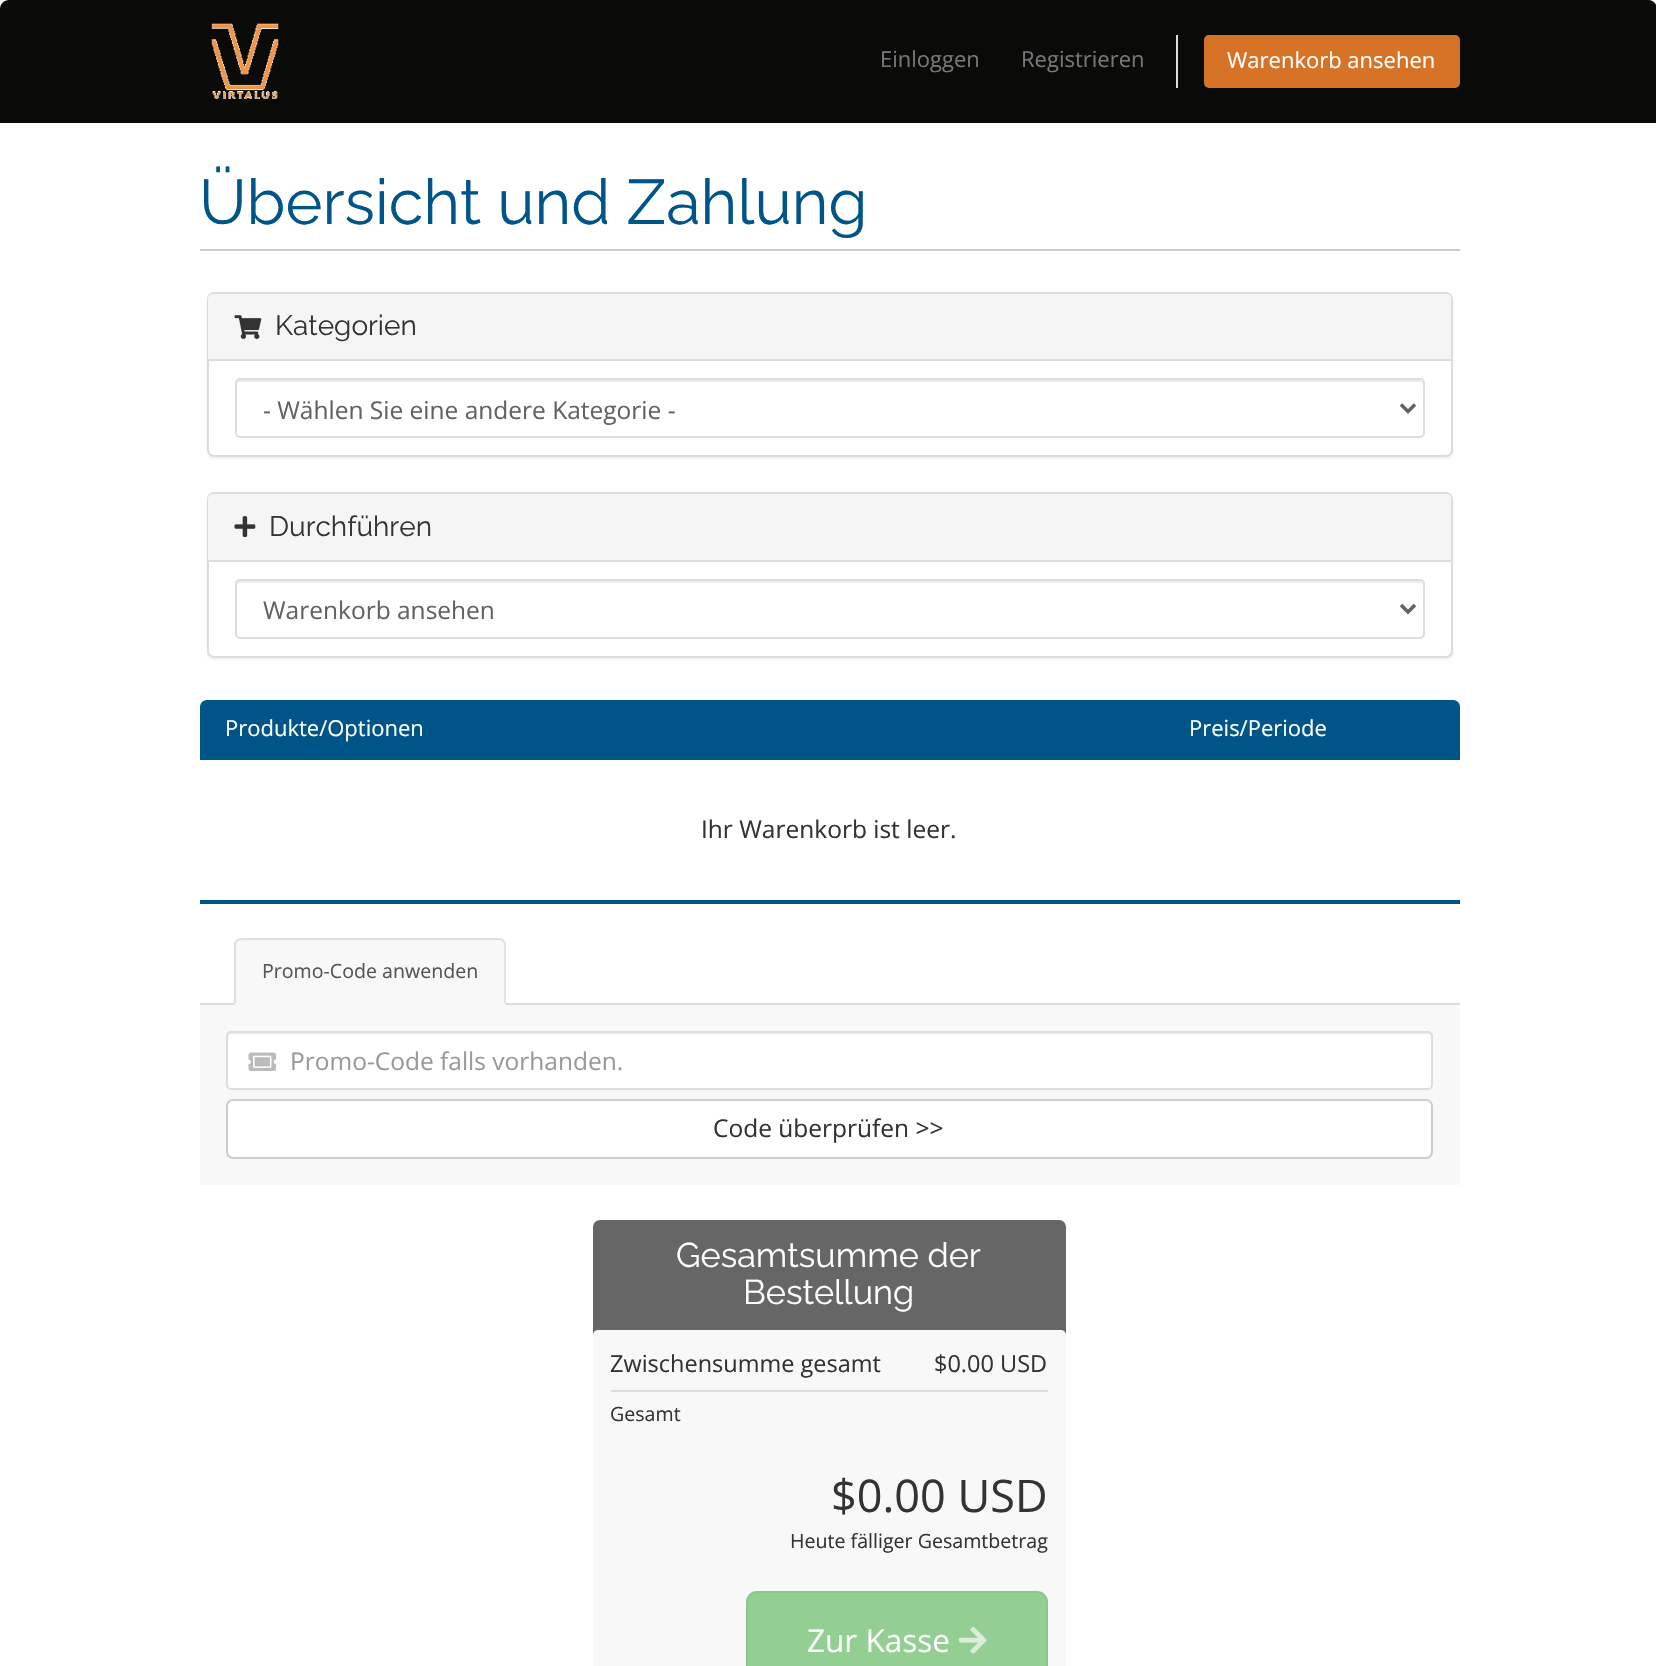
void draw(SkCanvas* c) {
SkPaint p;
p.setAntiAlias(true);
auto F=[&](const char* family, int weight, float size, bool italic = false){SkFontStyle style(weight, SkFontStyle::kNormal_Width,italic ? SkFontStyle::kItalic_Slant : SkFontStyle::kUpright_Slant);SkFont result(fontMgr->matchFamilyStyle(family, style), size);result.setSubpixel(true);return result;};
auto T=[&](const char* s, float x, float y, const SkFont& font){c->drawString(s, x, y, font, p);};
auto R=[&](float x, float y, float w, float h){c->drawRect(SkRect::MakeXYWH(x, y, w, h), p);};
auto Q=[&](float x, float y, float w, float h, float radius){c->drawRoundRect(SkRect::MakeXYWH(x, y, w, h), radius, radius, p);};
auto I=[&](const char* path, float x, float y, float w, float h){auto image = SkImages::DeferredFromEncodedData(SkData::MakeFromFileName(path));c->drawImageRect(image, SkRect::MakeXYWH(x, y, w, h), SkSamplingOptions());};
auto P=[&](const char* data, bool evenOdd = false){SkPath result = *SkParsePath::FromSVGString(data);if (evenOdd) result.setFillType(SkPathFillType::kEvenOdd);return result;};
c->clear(0xfff8f8f8);
p.setColor(0xff0a0a09);
c->drawPath(P("M9 0h1639c5 0 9 4 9 9v114h-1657v-114c0-5 4-9 9-9z"),p);
I("1.png",211,23,68,76);
auto f1 = F("Open Sans",400,22);
p.setColor(0xff777777);
T("Einloggen",880,67,f1);
T("Registrieren",1021,67,f1);
p.setColor(0xffdddddd);
R(1176,35,2,53);
p.setColor(0xffd67327);
Q(1204,35,256,53,5);
p.setColor(0xffffffff);
T("Warenkorb ansehen",1227,68,f1);
R(0,123,1656,1543);
p.setColor(0xffcccccc);
R(200,249,1260,2);
auto f2 = F("Raleway",400,63);
p.setColor(0xff005588);
T("Übersicht und Zahlung",199,224,f2);
p.setColor(0x0d000000);
p.setMaskFilter(SkMaskFilter::MakeBlur(kNormal_SkBlurStyle, 1));
c->drawRoundRect(SkRect::MakeXYWH(207,294,1246,165),7,7,p);
p.setMaskFilter(nullptr);
p.setColor(0xffffffff);
c->drawRoundRect(SkRect::MakeXYWH(208,293,1244,163),6,6,p);
p.setStroke(true);
p.setStrokeWidth(2);
p.setColor(0xffdddddd);
c->drawRoundRect(SkRect::MakeXYWH(208,293,1244,163),6,6,p);
p.setStroke(false);
p.setColor(0xfff5f5f5);
c->drawPath(P("M213 294h1233c3 0 5 2 5 5v62h-1243v-62c0-3 2-5 5-5z"),p);
p.setColor(0xffdddddd);
R(208,359,1243,2);
I("2.png",234,315,28,24);
auto f3 = F("Raleway",400,28);
p.setColor(0xff333333);
T("Kategorien",275,335,f3);
p.setColor(0xffececec);
c->drawPath(P("M240 382h1179c2 0 4 1 4 3c0-3-1-5-4-5h-1179c-3 0-4 2-4 5c0-2 2-3 4-3z"),p);
p.setStroke(true);
p.setColor(0xffdddddd);
c->drawRoundRect(SkRect::MakeXYWH(236,379,1188,58),4,4,p);
p.setStrokeWidth(3.5);
p.setColor(0xff626262);
c->drawPath(P("M1401 404.5l7 7l7-7"),p);
auto f4 = F("Open Sans",400,24.5);
p.setStroke(false);
T("- Wählen Sie eine andere Kategorie -",263,419,f4);
p.setColor(0x0d000000);
p.setMaskFilter(SkMaskFilter::MakeBlur(kNormal_SkBlurStyle, 1));
c->drawRoundRect(SkRect::MakeXYWH(207,494,1246,166),7,7,p);
p.setMaskFilter(nullptr);
p.setColor(0xffffffff);
c->drawRoundRect(SkRect::MakeXYWH(208,493,1244,164),6,6,p);
p.setStroke(true);
p.setStrokeWidth(2);
p.setColor(0xffdddddd);
c->drawRoundRect(SkRect::MakeXYWH(208,493,1244,164),6,6,p);
p.setStroke(false);
p.setColor(0xfff5f5f5);
c->drawPath(P("M213 494h1233c3 0 5 2 5 5v63h-1243v-63c0-3 2-5 5-5z"),p);
p.setColor(0xffdddddd);
R(208,560,1243,2);
I("3.png",234,516,22,21);
p.setColor(0xff333333);
T("Durchführen",269,536,f3);
p.setColor(0xffececec);
c->drawPath(P("M240 583h1179c2 0 4 1 4 3c0-3-1-5-4-5h-1179c-3 0-4 2-4 5c0-2 2-3 4-3z"),p);
p.setStroke(true);
p.setColor(0xffdddddd);
c->drawRoundRect(SkRect::MakeXYWH(236,580,1188,58),4,4,p);
p.setStrokeWidth(3.5);
p.setColor(0xff626262);
c->drawPath(P("M1401 605l7 7l7-7"),p);
p.setStroke(false);
T("Warenkorb ansehen",263,619,f4);
p.setColor(0xff005588);
c->drawPath(P("M207 700h1246c4 0 7 3 7 7v53h-1260v-53c0-4 3-7 7-7z"),p);
p.setColor(0xffffffff);
T("Produkte/Optionen",225,736,f1);
T("Preis/Periode",1189,736,f1);
p.setColor(0xff005588);
R(200,900,1260,4);
p.setColor(0xff333333);
T("Ihr Warenkorb ist leer.",701,838,f4);
p.setColor(0xffdddddd);
R(200,1003,1260,2);
p.setColor(0xfff8f8f8);
c->drawPath(P("M242 938h257c4 0 7 3 7 7v60h-271v-60c0-4 3-7 7-7z"),p);
p.setColor(0xffdee2e6);
c->drawPath(P("M242 938c-2 0-4 1-6 2l2 1c1-1 2-1 4-1h257c1 0 3 0 3 1l2-1c-1-1-3-2-5-2z"),p);
c->drawPath(P("M506 1004l-2-1v-58c0-2-1-3-2-4l2-1l2 3z"),p);
p.setColor(0xfff8f8f8);
c->drawPath(P("M505 1004h-270l1-1h268z"),p);
p.setColor(0xffdee2e6);
c->drawPath(P("M234 943l2-3l2 1l-2 3v59l-1 1h-1z"),p);
auto f5 = F("Open Sans",400,19.6);
p.setColor(0xff555555);
T("Promo-Code anwenden",262,978,f5);
p.setColor(0xfff8f8f8);
R(200,1005,1260,180);
p.setColor(0xffffffff);
Q(226,1031,1207,59,5);
p.setColor(0xffececec);
c->drawPath(P("M231 1034h1197c2 0 4 2 4 4c0-3-1-5-4-5h-1196c-3 0-4 2-4 5c0-2 1-4 3-4z"),p);
p.setStroke(true);
p.setStrokeWidth(2);
p.setColor(0xffdddddd);
c->drawRoundRect(SkRect::MakeXYWH(227,1032,1205,57),4,4,p);
I("4.png",248,1052,29,19);
p.setStroke(false);
p.setColor(0xff999999);
T("Promo-Code falls vorhanden.",290,1070,f4);
p.setColor(0xffffffff);
c->drawRoundRect(SkRect::MakeXYWH(227,1100,1205,58),6,6,p);
p.setStroke(true);
p.setColor(0xffcccccc);
c->drawRoundRect(SkRect::MakeXYWH(227,1100,1205,58),6,6,p);
p.setStroke(false);
p.setColor(0xff333333);
T("Code überprüfen >>",713,1137,f4);
p.setColor(0xff666666);
Q(593,1220,473,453,7);
auto f6 = F("Raleway",400,34.25);
p.setColor(0xffffffff);
T("Gesamtsumme der",676,1267,f6);
T("Bestellung",743,1304,f6);
p.setColor(0xfff8f8f8);
Q(593,1330,473,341,5);
p.setColor(0xffdddddd);
R(611,1390,437,2);
auto f7 = F("Open Sans",400,23.5);
p.setColor(0xff333333);
T("Zwischensumme gesamt",610,1372,f7);
T("$0.00 USD",934,1372,f7);
T("Gesamt",610,1421,f5);
auto f8 = F("Open Sans",400,45);
T("$0.00 USD",831,1512,f8);
T("Heute fälliger Gesamtbetrag",790,1548,f5);
p.setColor(0xff93ce93);
c->drawRoundRect(SkRect::MakeXYWH(747,1592,300,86),10,10,p);
p.setStroke(true);
p.setColor(0xff88c888);
c->drawRoundRect(SkRect::MakeXYWH(747,1592,300,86),10,10,p);
auto f9 = F("Open Sans",400,31.5);
p.setStroke(false);
p.setColor(0xffffffff);
T("Zur Kasse",807,1652,f9);
I("5.png",959,1626,28,28);
}
